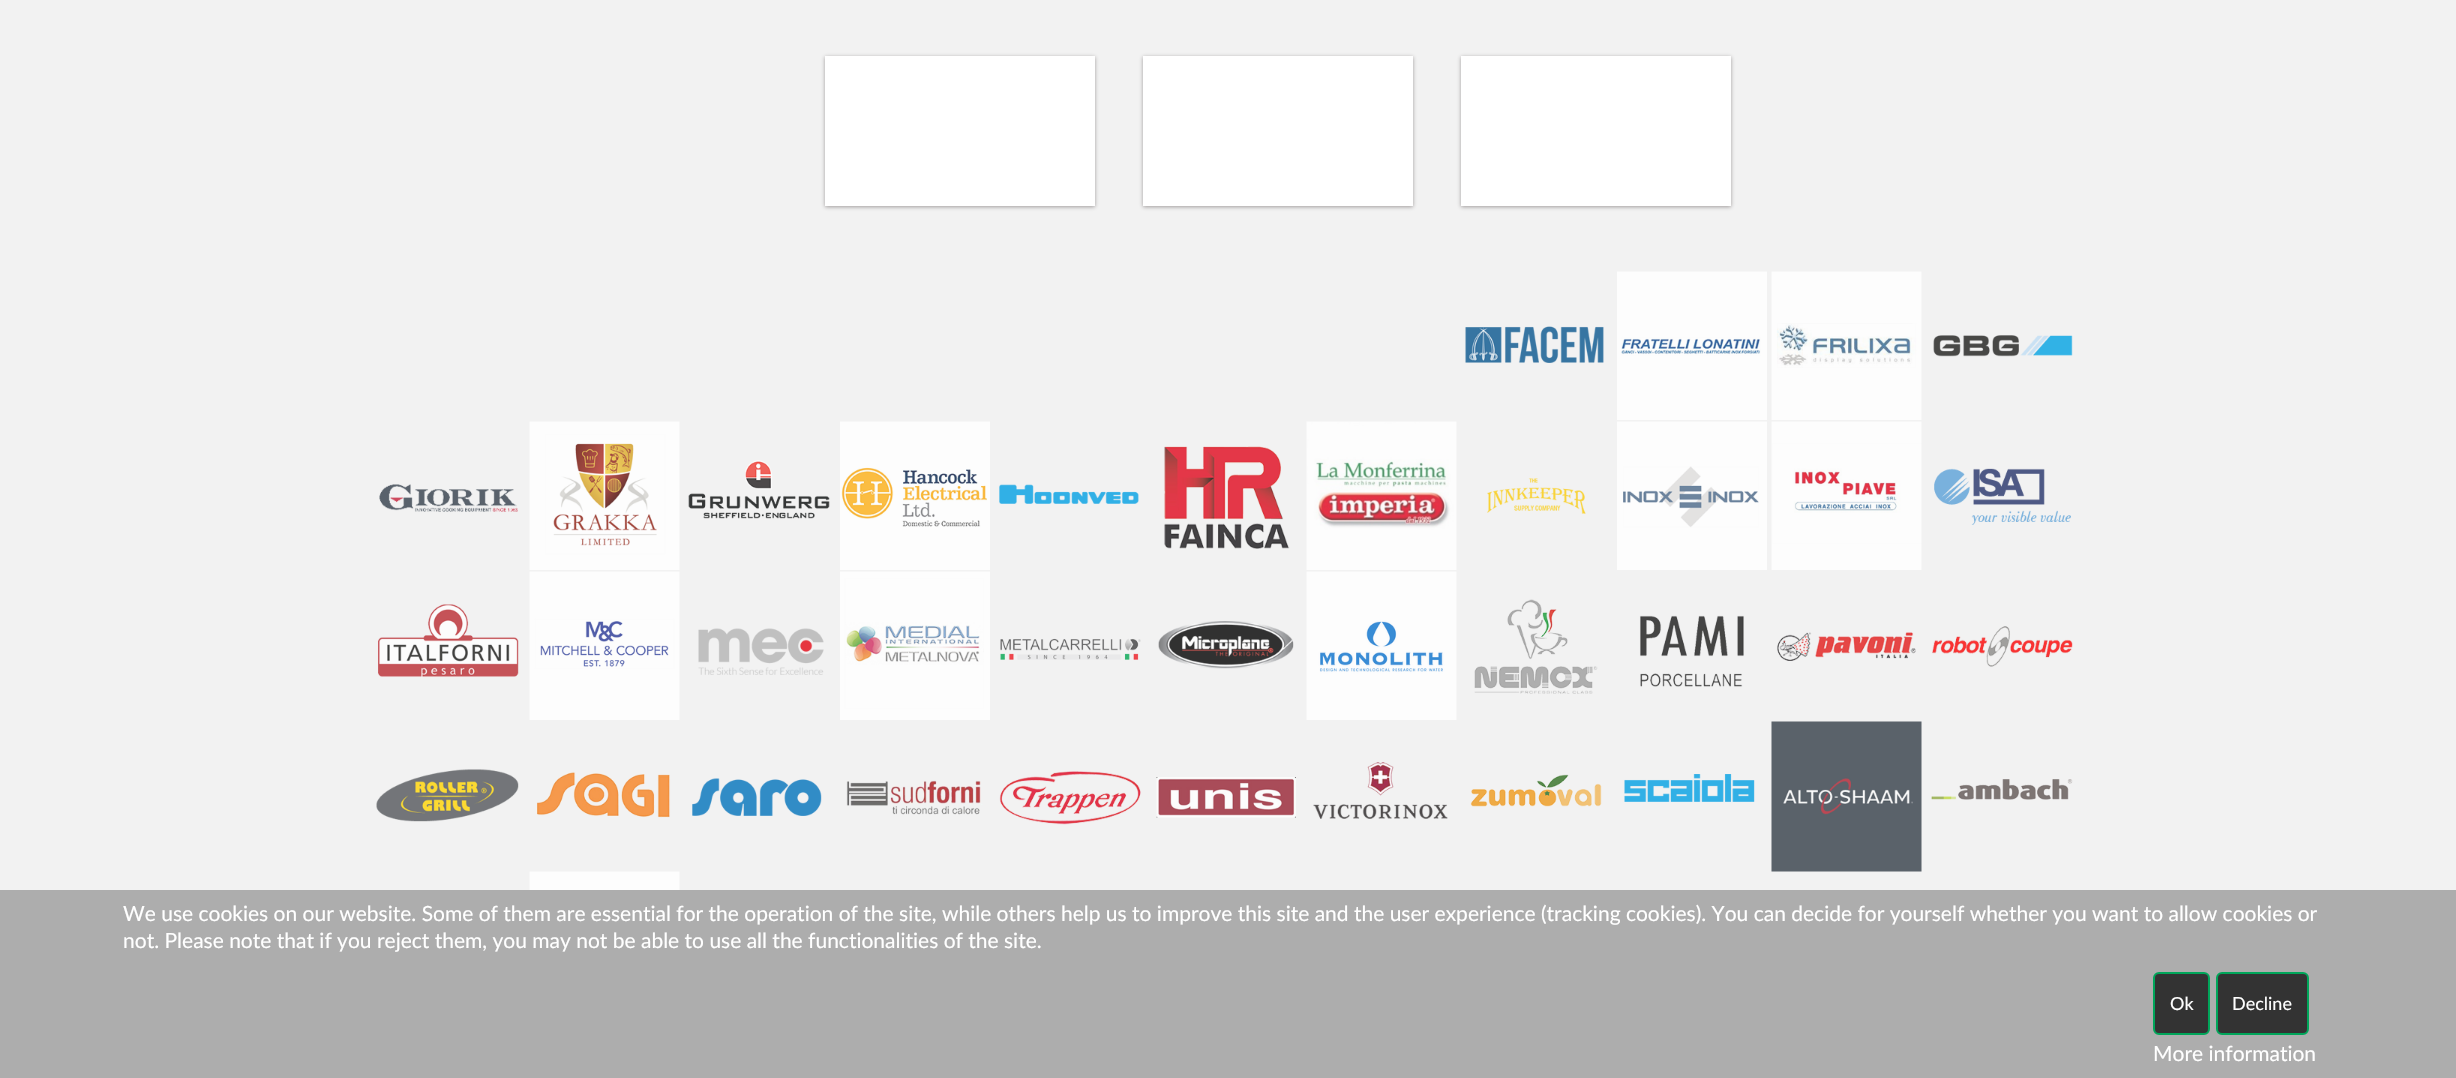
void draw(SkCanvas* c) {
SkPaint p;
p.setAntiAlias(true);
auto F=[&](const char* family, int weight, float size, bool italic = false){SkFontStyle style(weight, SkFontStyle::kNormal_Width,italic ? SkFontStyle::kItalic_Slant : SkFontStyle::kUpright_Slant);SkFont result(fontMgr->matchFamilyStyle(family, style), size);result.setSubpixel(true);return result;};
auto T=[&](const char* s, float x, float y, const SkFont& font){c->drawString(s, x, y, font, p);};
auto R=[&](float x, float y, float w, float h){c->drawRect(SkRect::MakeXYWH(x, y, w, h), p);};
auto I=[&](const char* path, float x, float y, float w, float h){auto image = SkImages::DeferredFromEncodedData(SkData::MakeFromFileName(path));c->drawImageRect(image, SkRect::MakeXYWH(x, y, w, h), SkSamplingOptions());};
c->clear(0xfff2f2f2);
p.setColor(0x66221919);
p.setMaskFilter(SkMaskFilter::MakeBlur(kNormal_SkBlurStyle, 2));
c->drawRect(SkRect::MakeXYWH(825,57,270,150),p);
p.setMaskFilter(nullptr);
p.setColor(0xffffffff);
R(825,56,270,150);
p.setColor(0x66221919);
p.setMaskFilter(SkMaskFilter::MakeBlur(kNormal_SkBlurStyle, 2));
c->drawRect(SkRect::MakeXYWH(1143,57,270,150),p);
p.setMaskFilter(nullptr);
p.setColor(0xffffffff);
R(1143,56,270,150);
p.setColor(0x66221919);
p.setMaskFilter(SkMaskFilter::MakeBlur(kNormal_SkBlurStyle, 2));
c->drawRect(SkRect::MakeXYWH(1461,57,270,150),p);
p.setMaskFilter(nullptr);
p.setColor(0xffffffff);
R(1461,56,270,150);
I("1.png",1465,326,139,37);
I("2.png",1617,271,150,149);
I("3.png",1771,271,151,149);
I("4.png",1933,335,140,22);
I("5.png",379,484,139,28);
I("6.png",529,421,151,149);
I("7.png",688,460,142,59);
I("8.png",840,421,150,149);
I("9.png",999,484,140,20);
I("10.png",1164,446,126,103);
I("11.png",1306,421,151,149);
I("12.png",1487,478,99,36);
I("13.png",1617,420,150,150);
I("14.png",1771,420,151,150);
I("15.png",1934,468,137,57);
I("16.png",378,604,141,73);
I("17.png",529,570,151,150);
I("18.png",698,628,126,47);
I("19.png",840,570,150,150);
I("20.png",1000,638,141,22);
I("21.png",1158,621,136,48);
I("22.png",1306,570,151,150);
I("23.png",1474,599,124,95);
I("24.png",1617,570,150,117);
I("25.png",1771,570,151,91);
I("26.png",1932,626,141,41);
I("27.png",376,769,143,53);
I("28.png",529,720,151,98);
I("29.png",692,778,130,38);
I("30.png",840,720,150,95);
I("31.png",999,771,142,54);
I("32.png",1156,777,140,41);
I("33.png",1306,720,151,99);
I("34.png",1470,774,132,33);
I("35.png",1624,774,131,28);
I("36.png",1771,721,151,151);
I("37.png",1931,779,142,21);
I("38.png",529,871,151,19);
p.setColor(0xffadadad);
R(0,890,2456,188);
auto f1 = F("Lato",400,21);
p.setColor(0xffffffff);
T("We use cookies on our website. Some of them are essential for the operation of the site, while others help us to improve this site and the user experience (tracking cookies). You can decide for yourself whether you want to allow cookies or",123,921,f1);
T("not. Please note that if you reject them, you may not be able to use all the functionalities of the site.",123,948,f1);
p.setColor(0xff333333);
c->drawRoundRect(SkRect::MakeXYWH(2154,973,55,61),5,5,p);
p.setStroke(true);
p.setStrokeWidth(2);
p.setColor(0xff00a65a);
c->drawRoundRect(SkRect::MakeXYWH(2154,973,55,61),5,5,p);
auto f2 = F("Lato",400,18);
p.setStroke(false);
p.setColor(0xffffffff);
T("Ok",2170,1010,f2);
p.setColor(0xff333333);
c->drawRoundRect(SkRect::MakeXYWH(2217,973,91,61),5,5,p);
p.setStroke(true);
p.setColor(0xff00a65a);
c->drawRoundRect(SkRect::MakeXYWH(2217,973,91,61),5,5,p);
p.setStroke(false);
p.setColor(0xffffffff);
T("Decline",2232,1010,f2);
T("More information",2153,1061,f1);
}
